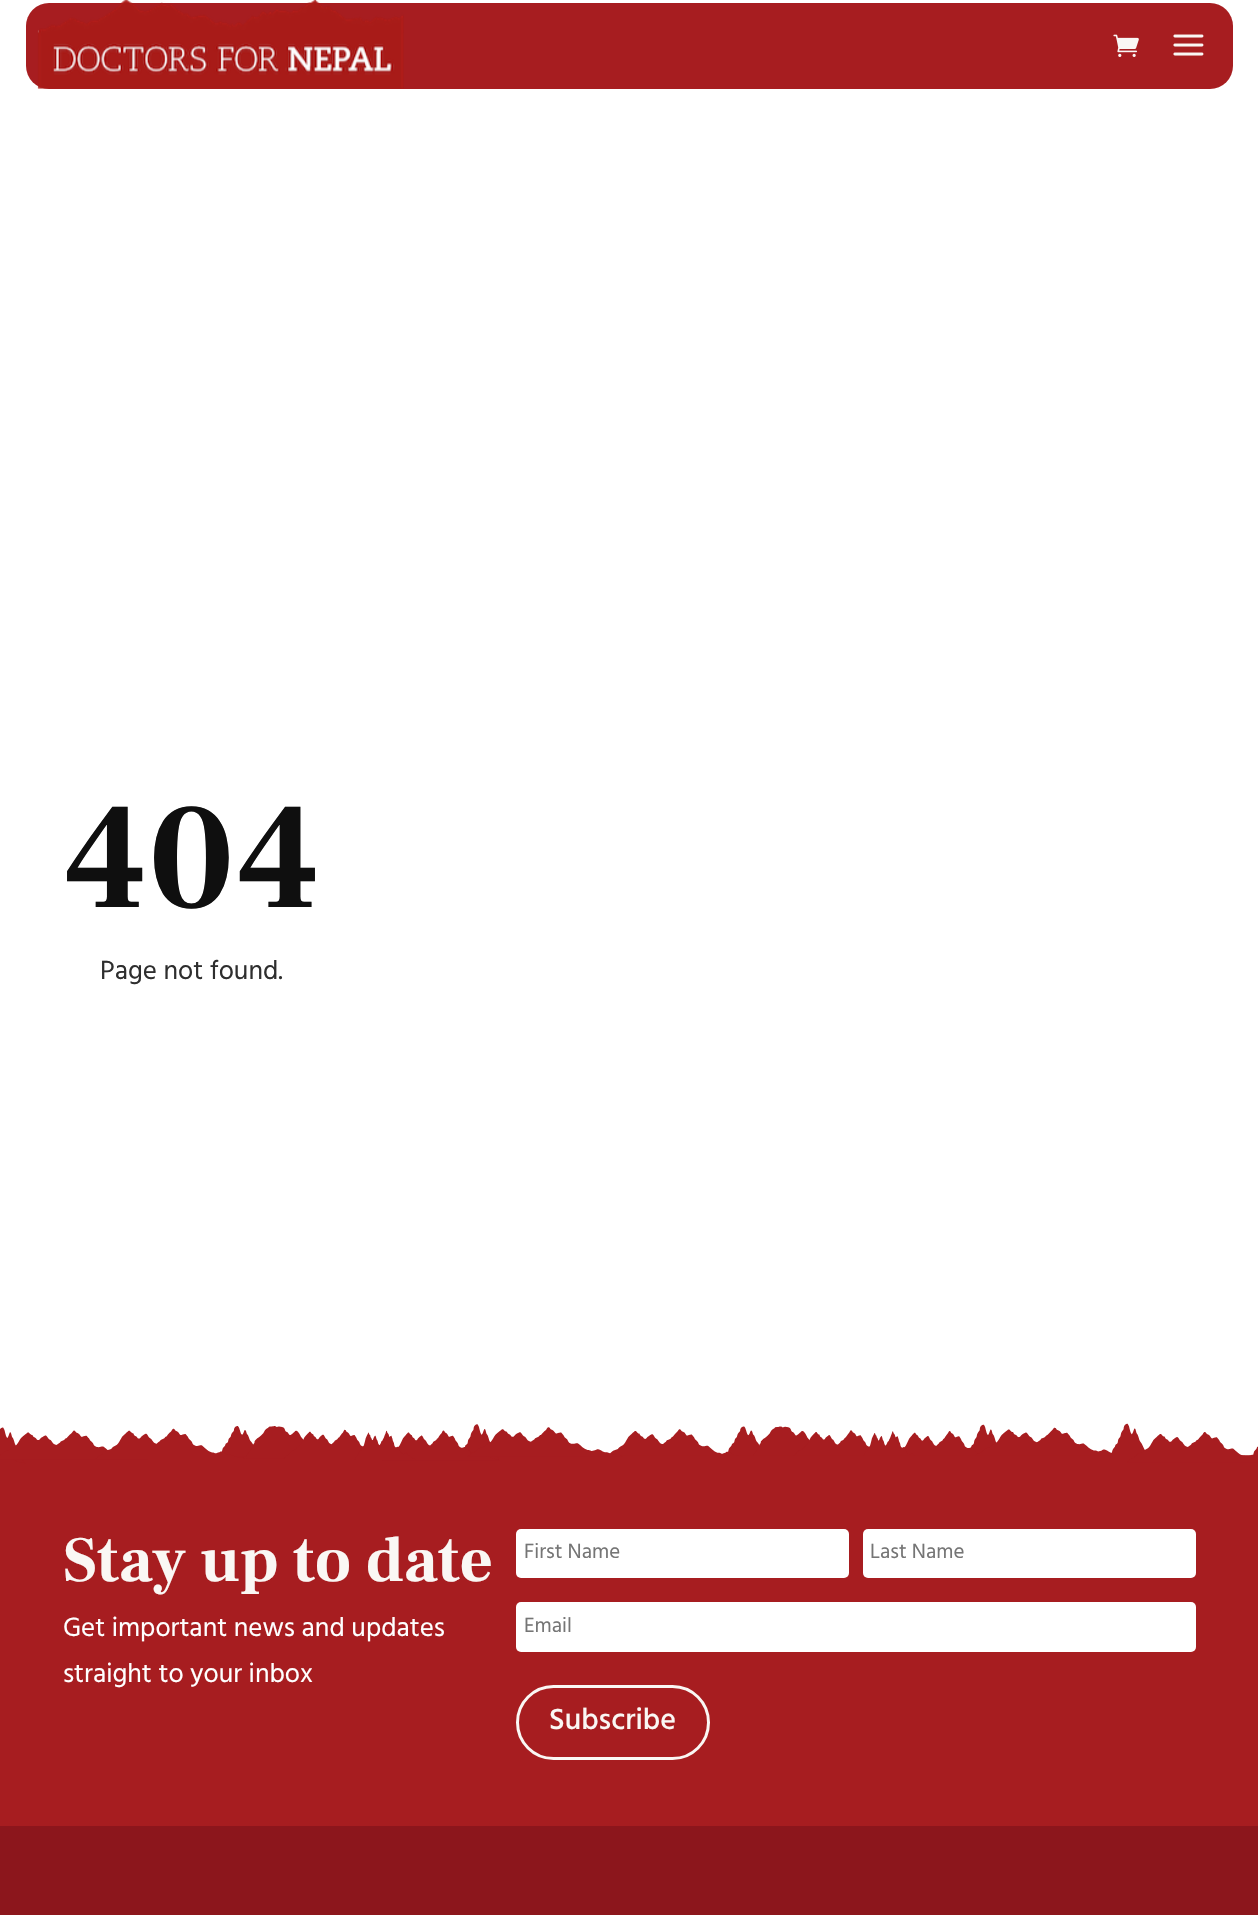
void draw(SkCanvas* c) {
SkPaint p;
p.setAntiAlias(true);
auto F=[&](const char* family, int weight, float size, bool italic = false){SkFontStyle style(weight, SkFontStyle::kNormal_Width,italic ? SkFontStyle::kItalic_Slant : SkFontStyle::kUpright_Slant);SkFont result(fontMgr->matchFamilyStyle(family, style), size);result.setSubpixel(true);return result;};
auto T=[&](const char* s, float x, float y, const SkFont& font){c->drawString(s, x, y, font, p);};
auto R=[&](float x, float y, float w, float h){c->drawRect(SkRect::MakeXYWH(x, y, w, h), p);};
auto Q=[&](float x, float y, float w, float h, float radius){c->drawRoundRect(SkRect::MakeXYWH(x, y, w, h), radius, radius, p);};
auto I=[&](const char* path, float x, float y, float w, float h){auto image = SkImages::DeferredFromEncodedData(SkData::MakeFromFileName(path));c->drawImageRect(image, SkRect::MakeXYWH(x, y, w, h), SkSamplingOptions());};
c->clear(0xffffffff);
p.setColor(0xffa71d20);
Q(26,3,1207,86,23);
I("1.png",37,0,367,89);
I("2.png",1113,34,26,23);
I("3.png",1173,34,31,22);
auto f1 = F("Frank Ruhl Libre",700,150);
p.setColor(0xff0f0f0f);
T("404",63,907,f1);
auto f2 = F("Hind",400,27);
p.setColor(0xff2e2e2e);
T("Page not found.",100,979,f2);
I("4.png",0,1423,1258,61);
p.setColor(0xffa71d20);
R(0,1484,1258,342);
auto f3 = F("Frank Ruhl Libre",700,64.5);
p.setColor(0xfffaf7f4);
T("Stay up to date",63,1581,f3);
p.setColor(0xffffffff);
T("Get important news and updates",63,1636,f2);
T("straight to your inbox",63,1682,f2);
Q(516,1529,333,49,5);
auto f4 = F("Hind",400,21);
p.setColor(0xff757575);
T("First Name",524,1558,f4);
p.setColor(0xffffffff);
Q(863,1529,333,49,5);
p.setColor(0xff757575);
T("Last Name",870,1558,f4);
p.setColor(0xffffffff);
Q(516,1602,680,50,5);
p.setColor(0xff757575);
T("Email",524,1632,f4);
p.setStroke(true);
p.setStrokeWidth(3);
p.setColor(0xfffaf7f4);
c->drawRoundRect(SkRect::MakeXYWH(517.5,1686.5,191,72),36,36,p);
auto f5 = F("Hind",500,30);
p.setStroke(false);
T("Subscribe",549,1729,f5);
p.setColor(0xff8c161c);
R(0,1826,1258,89);
}
